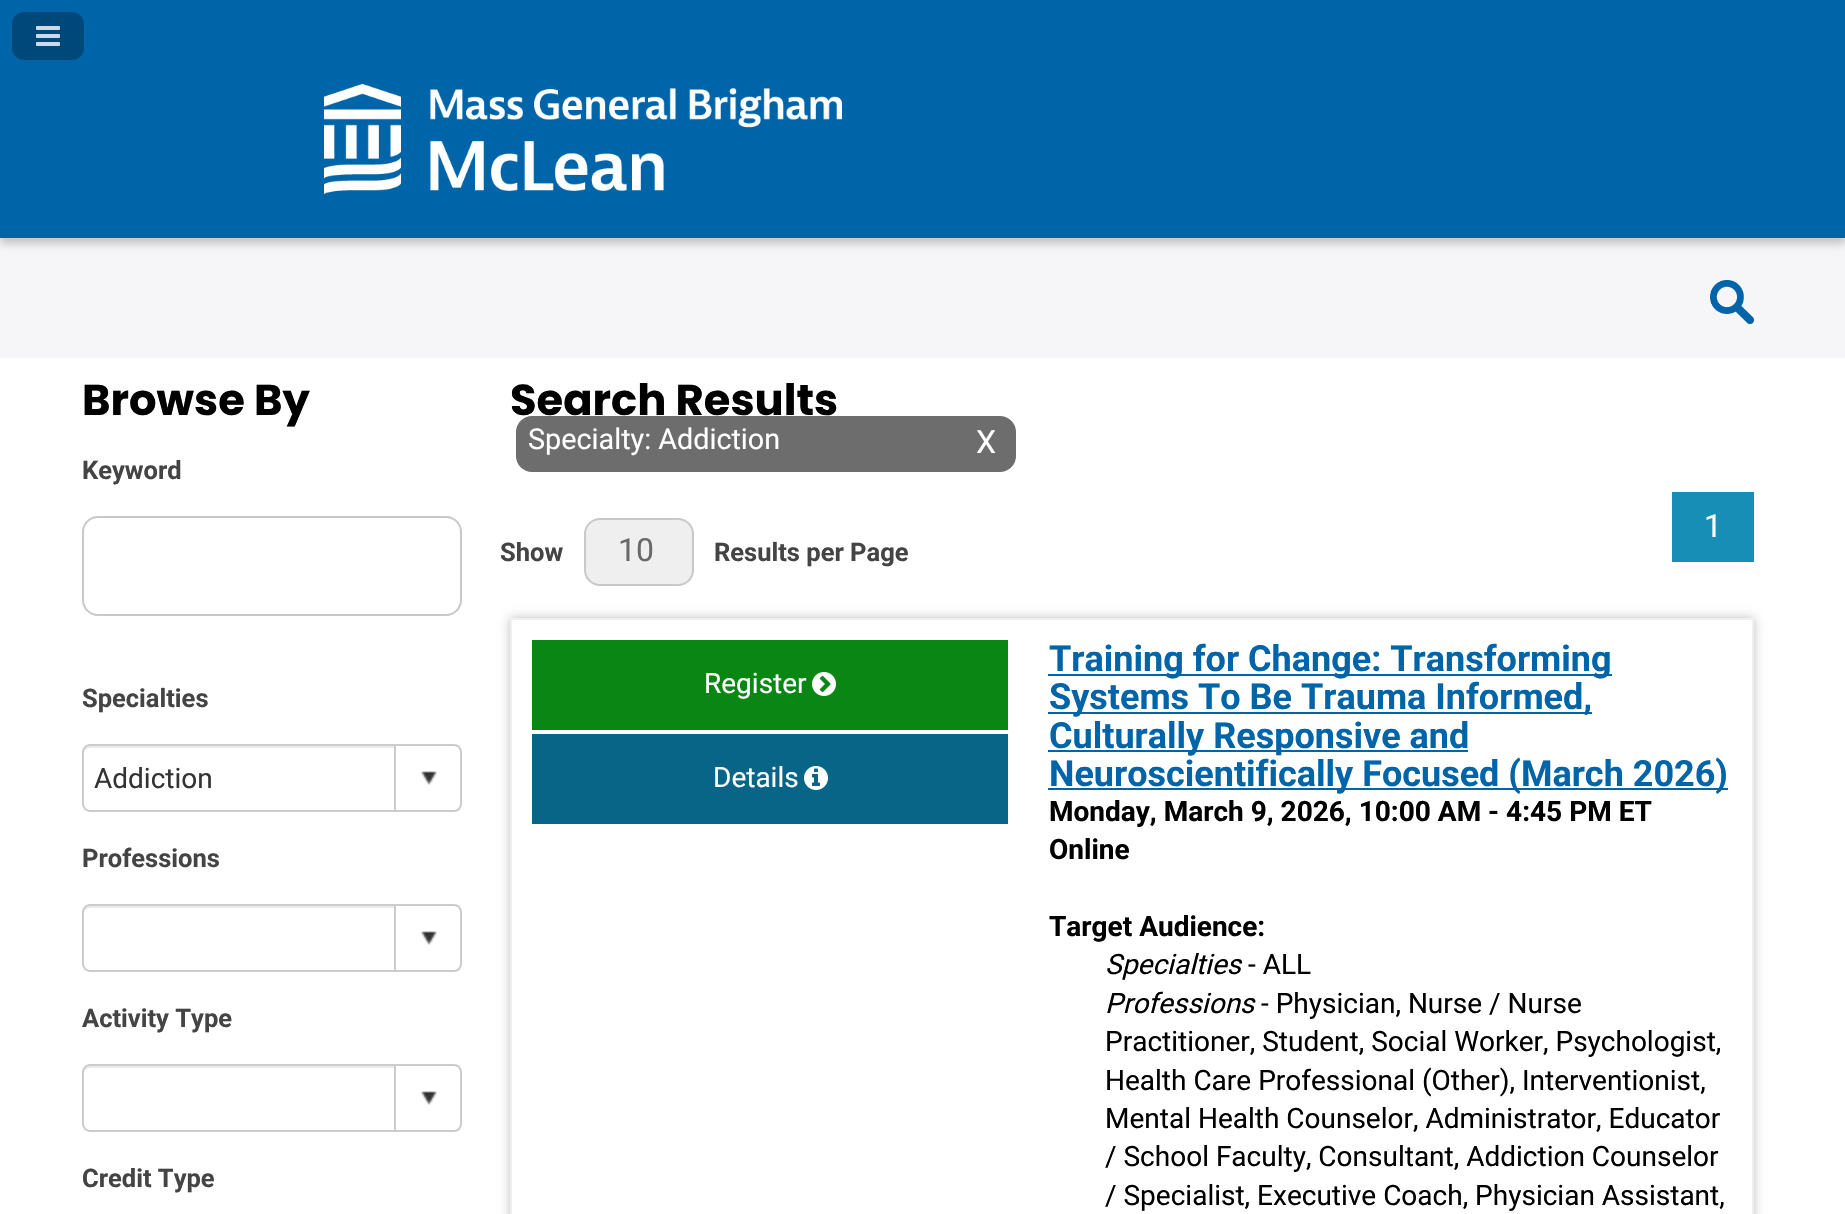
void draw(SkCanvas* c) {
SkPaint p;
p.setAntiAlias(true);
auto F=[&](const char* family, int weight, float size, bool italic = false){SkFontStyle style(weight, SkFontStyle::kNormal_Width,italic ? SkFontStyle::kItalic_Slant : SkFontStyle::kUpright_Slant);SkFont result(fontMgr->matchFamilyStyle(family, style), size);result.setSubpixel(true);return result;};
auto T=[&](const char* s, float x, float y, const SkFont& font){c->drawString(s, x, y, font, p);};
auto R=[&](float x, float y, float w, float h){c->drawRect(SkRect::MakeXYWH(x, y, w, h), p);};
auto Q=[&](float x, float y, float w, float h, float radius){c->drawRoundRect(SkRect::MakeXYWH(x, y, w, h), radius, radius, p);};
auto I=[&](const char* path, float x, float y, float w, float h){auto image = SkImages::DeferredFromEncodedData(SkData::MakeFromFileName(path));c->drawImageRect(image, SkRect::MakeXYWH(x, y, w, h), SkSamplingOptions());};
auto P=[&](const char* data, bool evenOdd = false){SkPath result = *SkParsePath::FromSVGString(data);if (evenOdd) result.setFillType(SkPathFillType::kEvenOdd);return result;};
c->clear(0xffffffff);
p.setColor(0xfff6f6f8);
R(0,238,1845,120);
p.setColor(0x33000000);
p.setMaskFilter(SkMaskFilter::MakeBlur(kNormal_SkBlurStyle, 4));
c->drawRect(SkRect::MakeXYWH(0,6,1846,238),p);
p.setMaskFilter(nullptr);
p.setColor(0xff0064a8);
R(0,0,1845,238);
p.setColor(0xff004879);
Q(12,12,72,48,12);
I("1.png",36,26,24,20);
I("2.png",324,84,518,110);
I("3.png",1710,280,44,44);
auto f1 = F("Poppins",700,43.25);
p.setColor(0xff000000);
T("Browse By",82,415,f1);
auto f2 = F("Roboto",700,25.5);
p.setColor(0xff444444);
T("Keyword",82,479,f2);
p.setStroke(true);
p.setStrokeWidth(2);
p.setColor(0xffc8c8c8);
c->drawRoundRect(SkRect::MakeXYWH(83,517,378,98),15,15,p);
p.setStroke(false);
p.setColor(0xff444444);
T("Specialties",82,707,f2);
p.setColor(0xffececec);
c->drawPath(P("M90 748h304v-2h-305c-4 1-5 5-5 8c0-3 3-6 6-6z"),p);
p.setColor(0xffcccccc);
c->drawPath(P("M90 744h304v68h-304c-4 0-8-4-8-8v-52c0-4 4-8 8-8zm0 2h304v64h-304c-3 0-6-3-6-6v-52c0-3 3-6 6-6z",true),p);
auto f3 = F("Roboto",400,28);
p.setColor(0xff333333);
T("Addiction",94,788,f3);
p.setStroke(true);
p.setColor(0xffcccccc);
c->drawPath(P("M395 745h59c4 0 7 3 7 7v52c0 4-3 7-7 7h-59z"),p);
I("4.png",421,771,16,14);
p.setStroke(false);
p.setColor(0xff444444);
T("Professions",82,867,f2);
p.setColor(0xffececec);
c->drawPath(P("M90 908h304v-2h-305c-4 1-5 5-5 8c0-3 3-6 6-6z"),p);
p.setColor(0xffcccccc);
c->drawPath(P("M90 904h304v68h-304c-4 0-8-4-8-8v-52c0-4 4-8 8-8zm0 2h304v64h-304c-3 0-6-3-6-6v-52c0-3 3-6 6-6z",true),p);
p.setStroke(true);
c->drawPath(P("M395 905h59c4 0 7 3 7 7v52c0 4-3 7-7 7h-59z"),p);
I("4.png",421,931,16,14);
p.setStroke(false);
p.setColor(0xff444444);
T("Activity Type",82,1027,f2);
p.setColor(0xffececec);
c->drawPath(P("M90 1068h304v-2h-305c-4 1-5 5-5 8c0-3 3-6 6-6z"),p);
p.setColor(0xffcccccc);
c->drawPath(P("M90 1064h304v68h-304c-4 0-8-4-8-8v-52c0-4 4-8 8-8zm0 2h304v64h-304c-3 0-6-3-6-6v-52c0-3 3-6 6-6z",true),p);
p.setStroke(true);
c->drawPath(P("M395 1065h59c4 0 7 3 7 7v52c0 4-3 7-7 7h-59z"),p);
I("4.png",421,1091,16,14);
p.setStroke(false);
p.setColor(0xff444444);
T("Credit Type",82,1187,f2);
p.setColor(0xff000000);
T("Search Results",510,415,f1);
p.setColor(0xff6d6d6d);
Q(516,416,500,56,16);
auto f4 = F("Roboto",400,28.75);
p.setColor(0xffffffff);
T("Specialty: Addiction",528,449,f4);
auto f5 = F("Roboto",400,32);
T("X",976,453,f5);
p.setColor(0xff178eb5);
R(1672,492,82,70);
p.setColor(0xffffffff);
T("1",1704,537,f5);
p.setColor(0xff444444);
T("Show",500,561,f2);
p.setColor(0xffefefef);
c->drawRoundRect(SkRect::MakeXYWH(585,519,108,66),15,15,p);
p.setStroke(true);
p.setColor(0xffc8c8c8);
c->drawRoundRect(SkRect::MakeXYWH(585,519,108,66),15,15,p);
p.setStroke(false);
p.setColor(0xff696969);
T("10",618,561,f5);
p.setColor(0xff444444);
T("Results per Page",714,561,f2);
c->save();
c->clipPath(P("M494 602h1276v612h-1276zm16 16h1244v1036h-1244z",true),true);
p.setColor(0x40000000);
p.setMaskFilter(SkMaskFilter::MakeBlur(kNormal_SkBlurStyle, 5));
c->drawRect(SkRect::MakeXYWH(510,618,1244,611),p);
p.setMaskFilter(nullptr);
c->restore();
p.setStroke(true);
p.setColor(0xffefefef);
c->drawRect(SkRect::MakeXYWH(511,619,1242,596),p);
p.setStroke(false);
p.setColor(0xff098613);
R(532,640,476,90);
p.setColor(0xffffffff);
T("Register",704,693,f3);
I("5.png",812,672,24,24);
p.setColor(0xff096587);
R(532,734,476,90);
p.setColor(0xffffffff);
T("Details",713,787,f3);
I("6.png",804,766,24,24);
p.setColor(0xff0064a8);
R(1048,674,564,2);
auto f6 = F("Roboto",700,36);
T("Training for Change: Transforming",1049,671,f6);
R(1048,712,544,2);
T("Systems To Be Trauma Informed,",1049,709,f6);
R(1048,750,420,2);
T("Culturally Responsive and",1049,748,f6);
R(1048,788,680,2);
T("Neuroscientifically Focused (March 2026)",1049,786,f6);
auto f7 = F("Roboto",700,28);
p.setColor(0xff000000);
T("Monday, March 9, 2026, 10:00 AM - 4:45 PM ET",1049,821,f7);
T("Online",1049,859,f7);
T("Target Audience:",1049,936,f7);
auto f8 = F("Roboto",400,28,true);
T("Specialties",1105,974,f8);
T("- ALL",1248,974,f3);
T("Professions",1105,1013,f8);
T("- Physician, Nurse / Nurse",1261,1013,f3);
T("Practitioner, Student, Social Worker, Psychologist,",1105,1051,f3);
T("Health Care Professional (Other), Interventionist,",1105,1090,f3);
T("Mental Health Counselor, Administrator, Educator",1105,1128,f3);
T("/ School Faculty, Consultant, Addiction Counselor",1105,1166,f3);
T("/ Specialist, Executive Coach, Physician Assistant,",1105,1205,f3);
}
